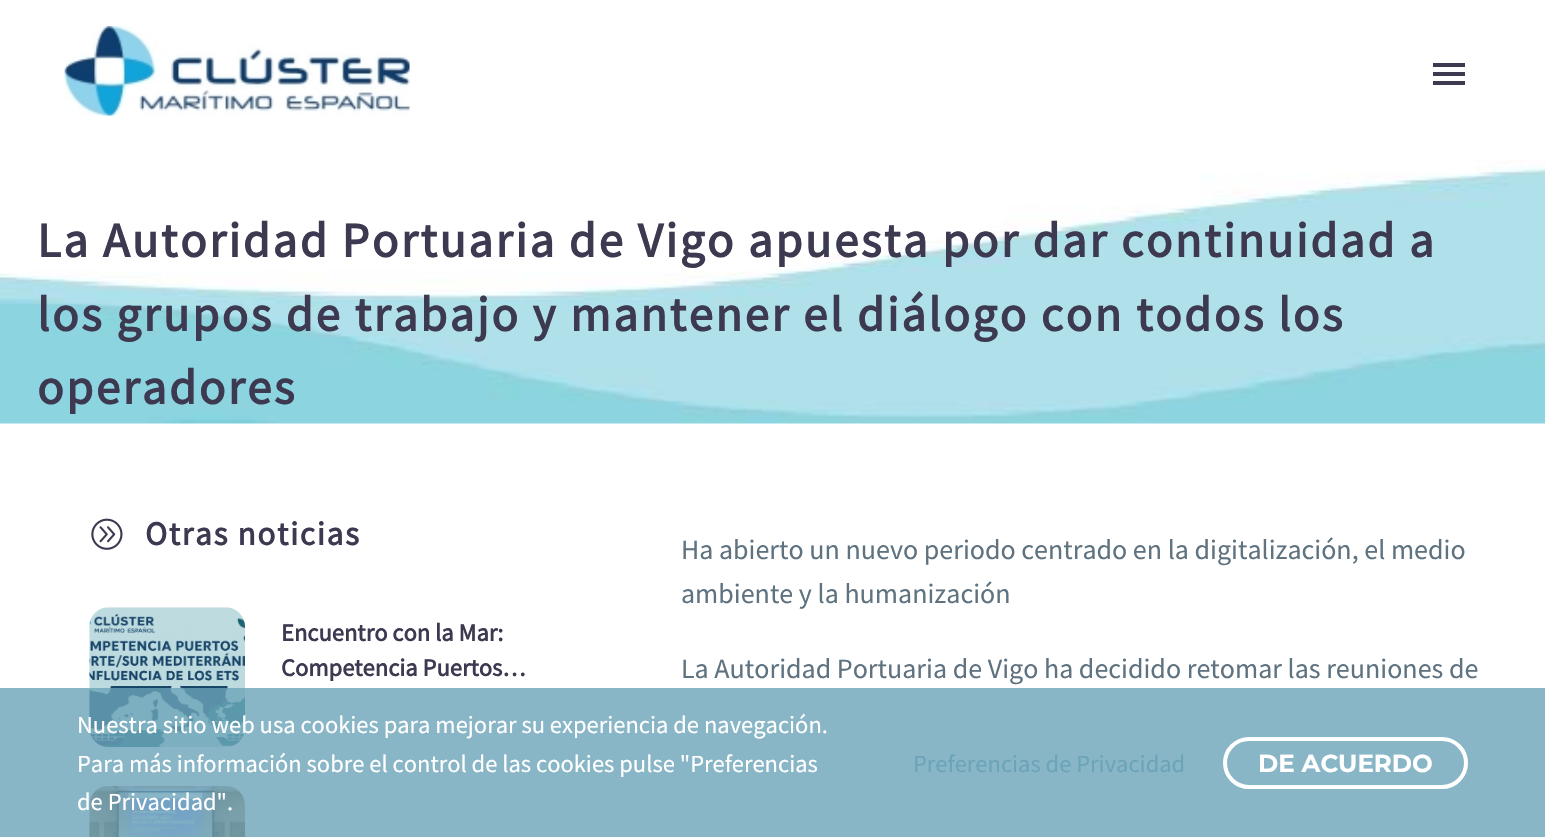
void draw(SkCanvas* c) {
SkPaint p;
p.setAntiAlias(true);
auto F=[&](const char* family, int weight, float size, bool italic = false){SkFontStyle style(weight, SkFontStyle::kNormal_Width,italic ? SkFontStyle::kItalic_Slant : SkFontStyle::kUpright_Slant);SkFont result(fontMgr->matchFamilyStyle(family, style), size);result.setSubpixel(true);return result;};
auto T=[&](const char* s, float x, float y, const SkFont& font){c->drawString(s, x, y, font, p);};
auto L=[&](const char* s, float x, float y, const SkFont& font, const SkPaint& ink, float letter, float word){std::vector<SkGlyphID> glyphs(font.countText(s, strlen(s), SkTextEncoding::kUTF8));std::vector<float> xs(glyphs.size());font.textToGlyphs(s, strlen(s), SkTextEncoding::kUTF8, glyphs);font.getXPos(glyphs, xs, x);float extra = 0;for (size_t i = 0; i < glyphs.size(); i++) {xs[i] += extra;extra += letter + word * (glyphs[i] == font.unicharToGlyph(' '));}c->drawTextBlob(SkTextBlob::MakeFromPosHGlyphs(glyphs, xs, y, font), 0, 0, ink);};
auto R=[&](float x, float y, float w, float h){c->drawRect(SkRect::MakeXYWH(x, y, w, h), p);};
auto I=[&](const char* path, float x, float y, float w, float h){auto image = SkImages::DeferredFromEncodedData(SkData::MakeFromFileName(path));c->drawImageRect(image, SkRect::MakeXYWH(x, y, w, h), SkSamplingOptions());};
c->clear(0xffffffff);
I("1.png",64,26,346,90);
p.setColor(0xff3c3950);
R(1433,63,32,4);
R(1433,72,32,4);
R(1433,81,32,4);
I("2.png",0,160,1545,264);
auto f1 = F("Source Sans Pro",700,49);
L("La Autoridad Portuaria de Vigo apuesta por dar continuidad a",37,257,f1,p,2.45,0);
L("los grupos de trabajo y mantener el diálogo con todos los",37,331,f1,p,2.45,0);
L("operadores",37,404,f1,p,2.45,0);
I("3.png",91,518,32,32);
auto f2 = F("Source Sans Pro",700,33.25);
L("Otras noticias",145,545,f2,p,1.7,0);
I("4.png",89,607,156,141);
auto f3 = F("Source Sans Pro",700,24.5);
T("Encuentro con la Mar:",281,641,f3);
T("Competencia Puertos…",281,676,f3);
I("5.png",89,785,156,52);
auto f4 = F("Source Sans Pro",400,28);
p.setColor(0xff5f727f);
T("Ha abierto un nuevo periodo centrado en la digitalización, el medio",681,559,f4);
T("ambiente y la humanización",681,603,f4);
T("La Autoridad Portuaria de Vigo ha decidido retomar las reuniones de",681,678,f4);
p.setColor(0xcc6ba4b8);
R(0,688,1545,149);
auto f5 = F("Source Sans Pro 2",400,24.5);
p.setColor(0xffffffff);
T("Nuestra sitio web usa cookies para mejorar su experiencia de navegación.",77,733,f5);
T("Para más información sobre el control de las cookies pulse \"Preferencias",77,772,f5);
T("de Privacidad\".",77,810,f5);
p.setColor(0xff6ba4b8);
T("Preferencias de Privacidad",913,772,f5);
p.setStroke(true);
p.setStrokeWidth(4);
p.setColor(0xffffffff);
c->drawRoundRect(SkRect::MakeXYWH(1225,739,241,48),24,24,p);
auto f6 = F("Montserrat",700,24.5);
p.setStroke(false);
T("DE ACUERDO",1258,772,f6);
}
